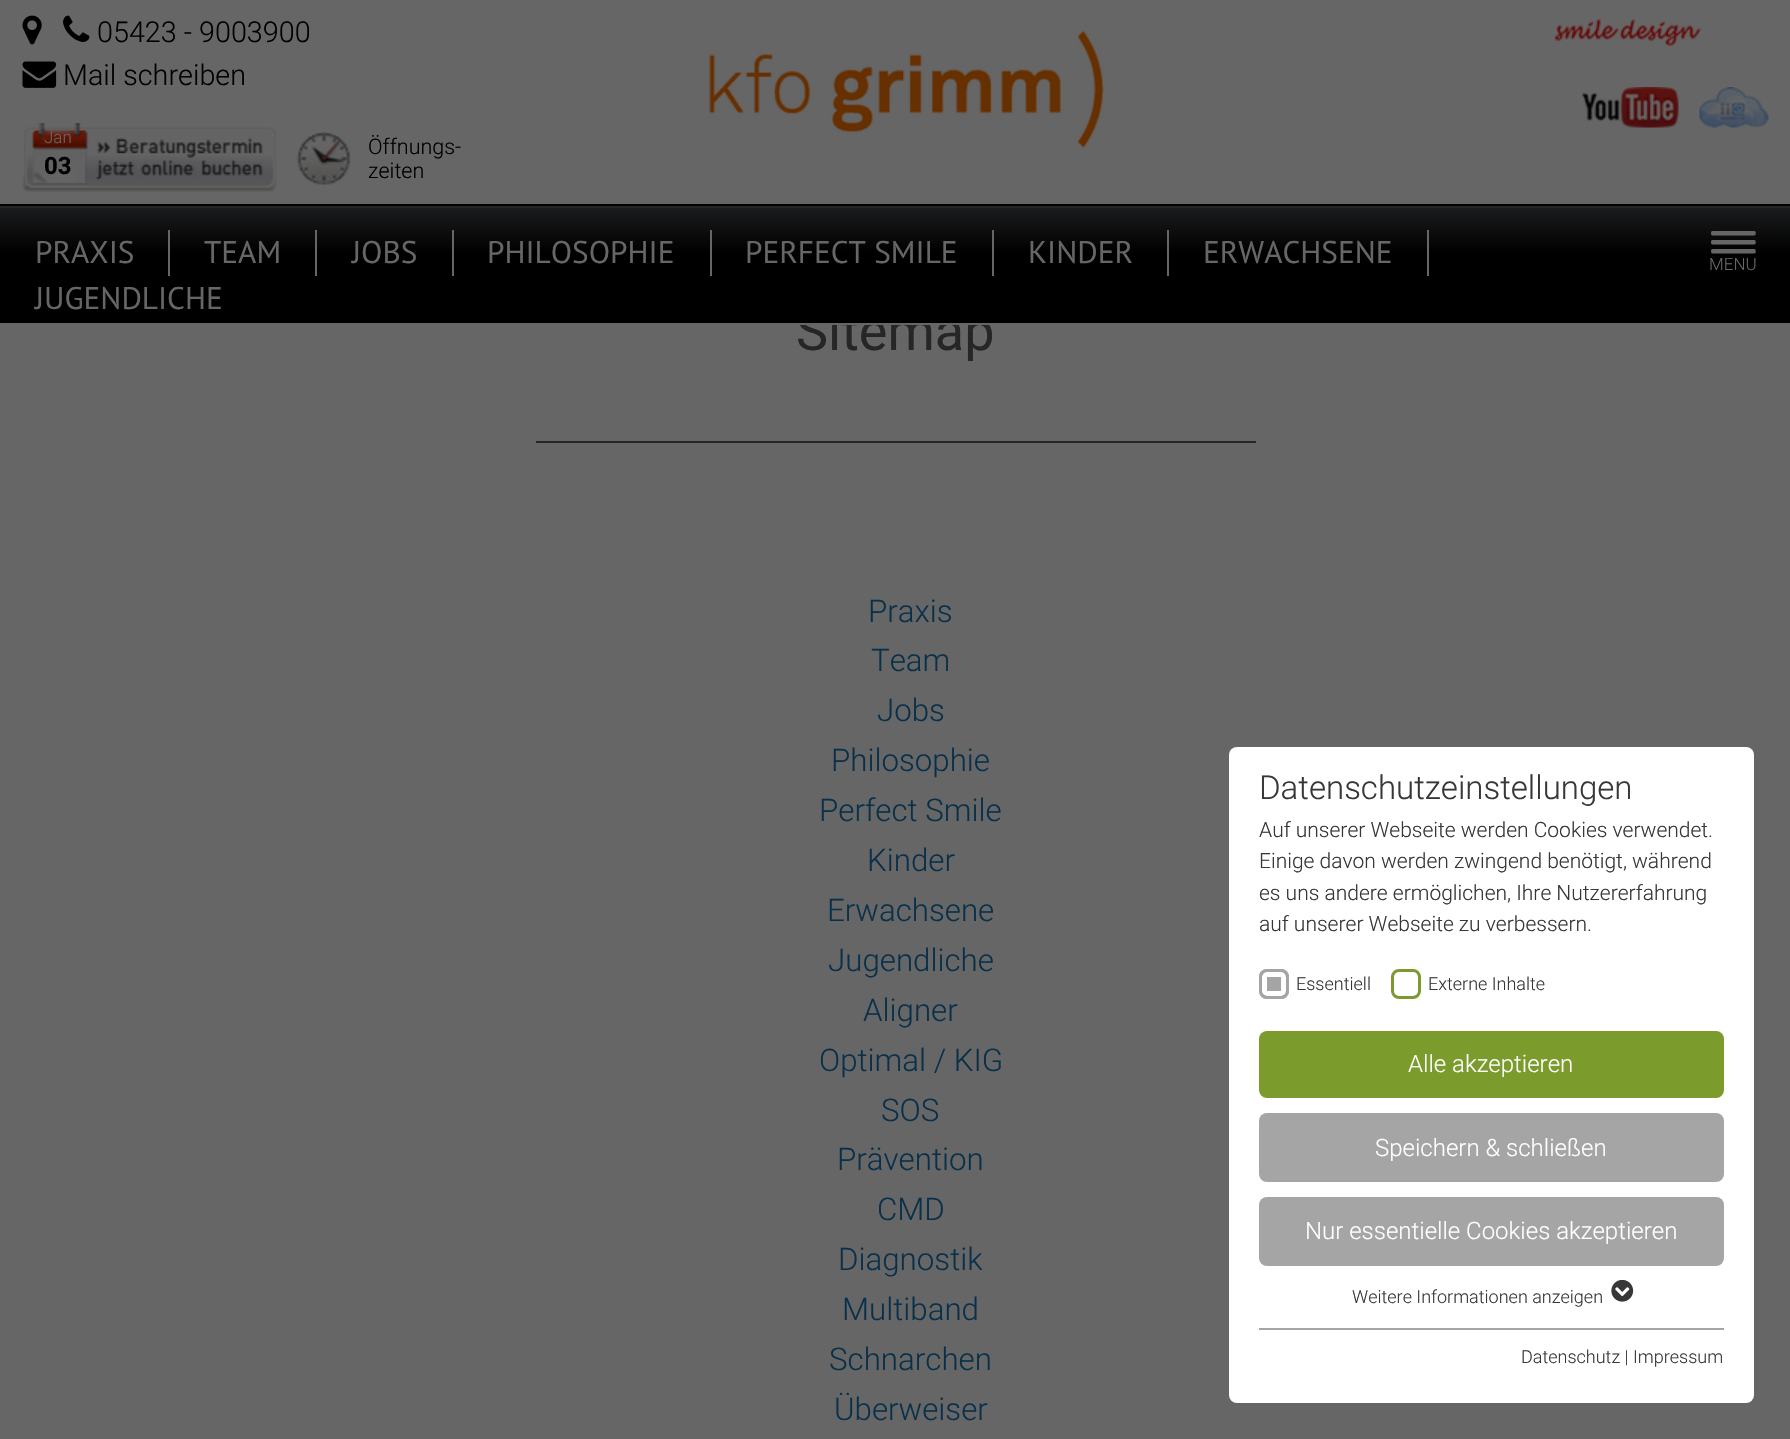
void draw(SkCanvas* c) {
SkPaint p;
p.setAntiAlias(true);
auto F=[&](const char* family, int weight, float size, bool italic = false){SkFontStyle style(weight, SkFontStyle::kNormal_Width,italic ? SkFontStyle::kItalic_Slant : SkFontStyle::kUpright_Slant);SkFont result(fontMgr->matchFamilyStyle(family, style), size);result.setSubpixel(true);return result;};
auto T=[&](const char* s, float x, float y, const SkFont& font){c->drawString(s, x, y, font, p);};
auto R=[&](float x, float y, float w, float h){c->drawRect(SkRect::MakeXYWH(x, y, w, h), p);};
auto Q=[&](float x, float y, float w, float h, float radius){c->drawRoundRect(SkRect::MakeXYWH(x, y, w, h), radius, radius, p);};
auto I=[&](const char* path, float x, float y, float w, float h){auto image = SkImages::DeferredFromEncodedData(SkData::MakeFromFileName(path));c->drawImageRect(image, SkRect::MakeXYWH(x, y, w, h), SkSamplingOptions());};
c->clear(0xff666666);
p.setColor(0xff000000);
R(0,204,1790,2);
I("1.png",22,15,20,30);
I("2.png",63,15,27,27);
auto f1 = F("Roboto",300,28.75);
T("05423 - 9003900",97,42,f1);
I("3.png",22,61,35,27);
T("Mail schreiben",63,85,f1);
I("4.png",22,123,255,69);
auto f2 = F("Roboto",300,17);
p.setColor(0xff666666);
T("Jan",44,143,f2);
auto f3 = F("Roboto",700,24);
p.setColor(0xff000000);
T("03",44,174,f3);
I("5.png",296,132,55,53);
auto f4 = F("Roboto",300,21.5);
T("Öffnungs-",368,154,f4);
T("zeiten",368,178,f4);
I("6.png",709,30,396,118);
I("7.png",1553,18,149,29);
I("8.png",1582,87,97,41);
I("9.png",1699,87,70,41);
auto f5 = F("Roboto",400,54);
p.setColor(0xff262626);
T("Sitemap",796,350,f5);
{
const SkColor colors[] = {0xff1b1c1d,0xff000000};
const float stops[] = {0,.4};
const SkPoint ends[] = {{896,207}, {896,323}};
p.setShader(SkGradientShader::MakeLinear(ends, colors, stops, 2, SkTileMode::kClamp));
p.setAlpha(255);
}
R(0,208,1790,115);
p.setShader(nullptr);
p.setColor(0xff242627);
R(0,206,1790,2);
p.setColor(0xff666666);
R(799,323,191,2);
R(168,230,2,46);
auto f6 = F("PT Sans",400,31.25);
T("PRAXIS",35,263,f6);
R(315,230,2,46);
T("TEAM",204,263,f6);
R(452,230,2,46);
T("JOBS",352,263,f6);
R(710,230,2,46);
T("PHILOSOPHIE",487,263,f6);
R(992,230,2,46);
T("PERFECT SMILE",745,263,f6);
R(1167,230,2,46);
T("KINDER",1028,263,f6);
R(1427,230,2,46);
T("ERWACHSENE",1203,263,f6);
T("JUGENDLICHE",35,309,f6);
I("10.png",1711,231,45,23);
T("MENU",1709,270,f2);
p.setColor(0xff262626);
R(536,441,720,2);
auto f7 = F("Roboto",300,31.25);
p.setColor(0xff09304a);
T("Praxis",868,622,f7);
T("Team",871,671,f7);
T("Jobs",877,721,f7);
T("Philosophie",831,771,f7);
T("Perfect Smile",819,821,f7);
T("Kinder",867,871,f7);
T("Erwachsene",827,921,f7);
T("Jugendliche",828,971,f7);
T("Aligner",863,1021,f7);
T("Optimal / KIG",819,1071,f7);
T("SOS",881,1121,f7);
T("Prävention",837,1170,f7);
T("CMD",877,1220,f7);
T("Diagnostik",838,1270,f7);
T("Multiband",842,1320,f7);
T("Schnarchen",829,1370,f7);
T("Überweiser",834,1420,f7);
p.setColor(0xffffffff);
Q(1229,747,525,656,8);
auto f8 = F("Roboto",300,33);
p.setColor(0xff373737);
T("Datenschutzeinstellungen",1259,799,f8);
auto f9 = F("Roboto",300,21);
T("Auf unserer Webseite werden Cookies verwendet.",1259,837,f9);
T("Einige davon werden zwingend benötigt, während",1259,868,f9);
T("es uns andere ermöglichen, Ihre Nutzererfahrung",1259,900,f9);
T("auf unserer Webseite zu verbessern.",1259,931,f9);
p.setColor(0xffa5a5a5);
Q(1259,969,30,30,8);
p.setStroke(true);
p.setStrokeWidth(5);
p.setColor(0xffffffff);
c->drawRoundRect(SkRect::MakeXYWH(1264.5,974.5,19,19),2.5,2.5,p);
p.setStrokeWidth(3);
p.setColor(0xffa5a5a5);
c->drawRoundRect(SkRect::MakeXYWH(1260.5,970.5,27,27),6.5,6.5,p);
auto f10 = F("Roboto",300,18);
p.setStroke(false);
p.setColor(0xff373737);
T("Essentiell",1296,990,f10);
p.setStroke(true);
p.setColor(0xff7b9b2c);
c->drawRoundRect(SkRect::MakeXYWH(1392.5,970.5,27,27),6.5,6.5,p);
p.setStroke(false);
p.setColor(0xff373737);
T("Externe Inhalte",1428,990,f10);
p.setColor(0xff7b9b2c);
Q(1259,1031,465,67,8);
auto f11 = F("Roboto",300,24);
p.setColor(0xffffffff);
T("Alle akzeptieren",1408,1072,f11);
p.setColor(0xffa5a5a5);
Q(1259,1113,465,69,8);
p.setColor(0xffffffff);
T("Speichern & schließen",1375,1156,f11);
p.setColor(0xffa5a5a5);
Q(1259,1197,465,69,8);
p.setColor(0xffffffff);
T("Nur essentielle Cookies akzeptieren",1305,1239,f11);
p.setColor(0xff373737);
T("Weitere Informationen anzeigen",1352,1303,f10);
I("11.png",1611,1280,23,22);
p.setColor(0xffa5a5a5);
R(1259,1328,465,2);
p.setColor(0xff373737);
T("Datenschutz | Impressum",1521,1363,f10);
}
